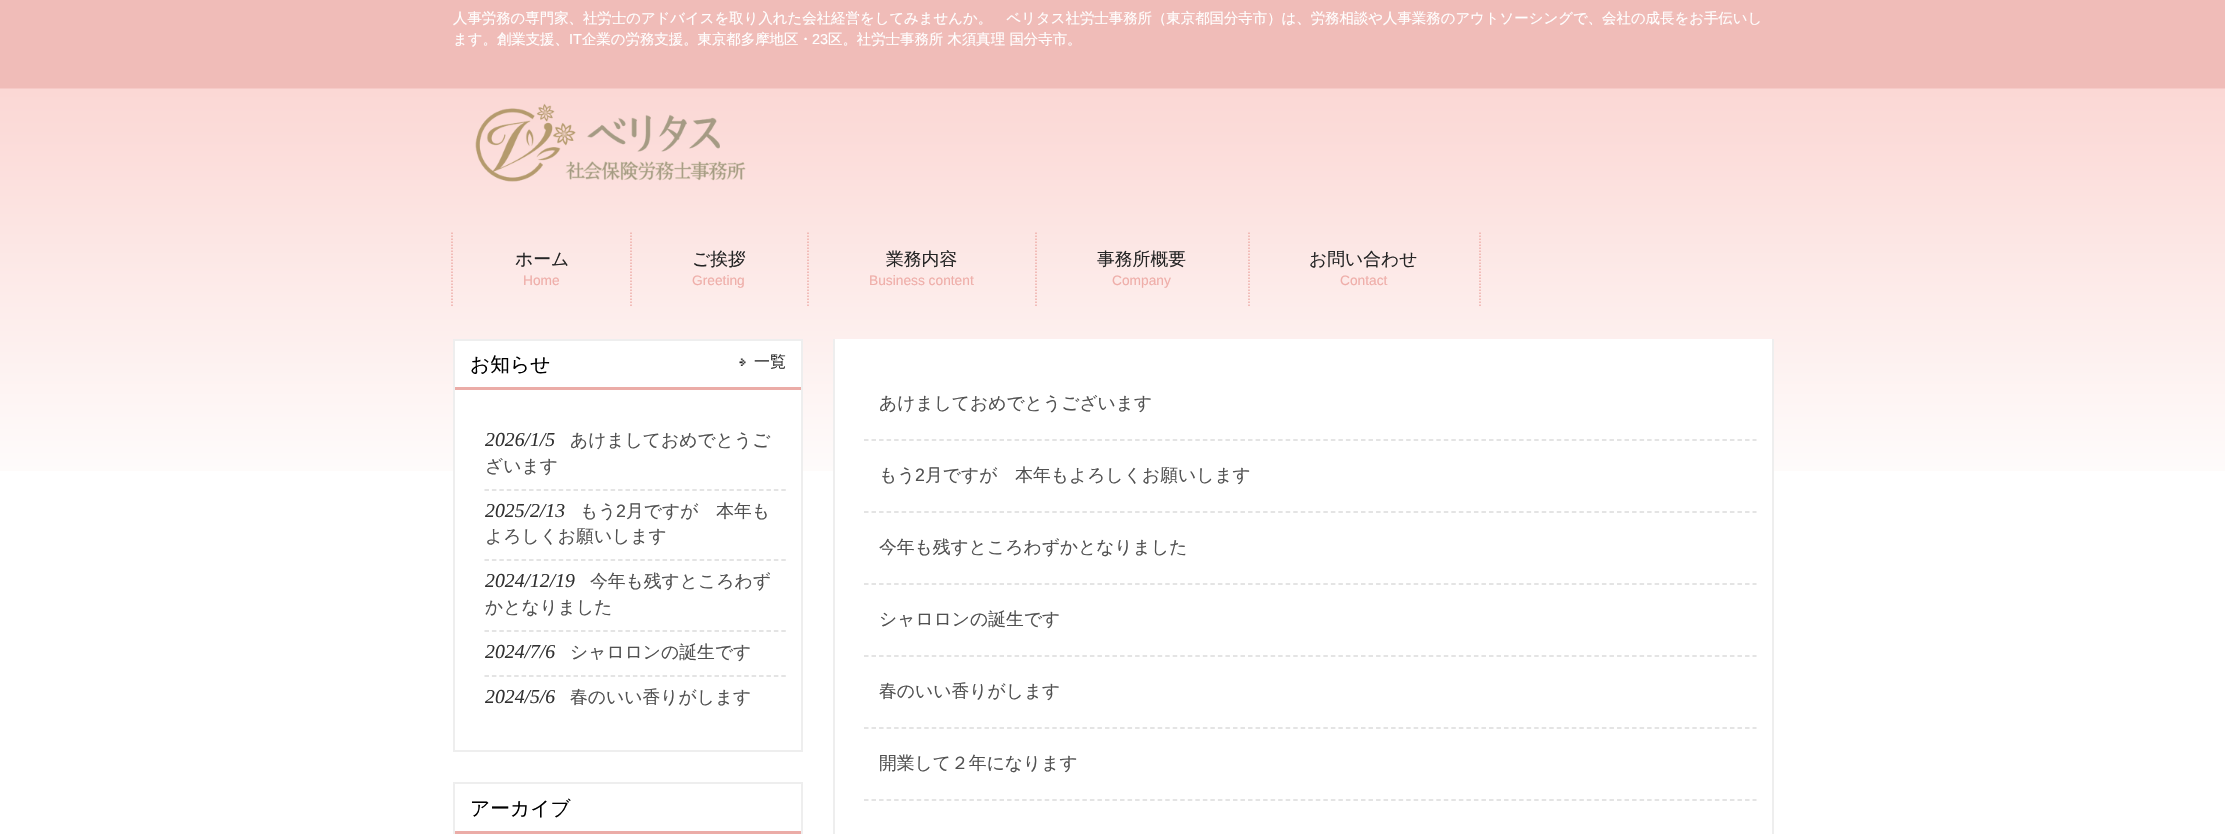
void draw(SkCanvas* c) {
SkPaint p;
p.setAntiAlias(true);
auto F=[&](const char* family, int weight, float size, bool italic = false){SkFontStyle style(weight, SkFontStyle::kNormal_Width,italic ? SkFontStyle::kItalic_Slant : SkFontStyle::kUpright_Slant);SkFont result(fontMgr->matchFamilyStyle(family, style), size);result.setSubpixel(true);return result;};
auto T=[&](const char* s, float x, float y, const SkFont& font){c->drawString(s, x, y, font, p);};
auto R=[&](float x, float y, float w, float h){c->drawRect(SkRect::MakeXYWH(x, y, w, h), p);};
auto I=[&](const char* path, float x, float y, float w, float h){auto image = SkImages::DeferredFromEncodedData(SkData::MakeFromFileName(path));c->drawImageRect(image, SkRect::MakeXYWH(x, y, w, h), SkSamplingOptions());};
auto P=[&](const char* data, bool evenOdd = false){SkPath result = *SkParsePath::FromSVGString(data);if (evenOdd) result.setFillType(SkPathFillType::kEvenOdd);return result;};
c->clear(0xffffffff);
I("1.png",0,0,2225,471);
auto f1 = F("WenQuanYi Zen Hei",500,14.4);
p.setColor(0xffffffff);
T("人事労務の専門家、社労士のアドバイスを取り入れた会社経営をしてみませんか。　ベリタス社労士事務所（東京都国分寺市）は、労務相談や人事業務のアウトソーシングで、会社の成長をお手伝いし",453,23,f1);
T("ます。創業支援、",453,44,f1);
auto f2 = F("Liberation Sans",400,14.4);
T("IT",569,44,f2);
T("企業の労務支援。東京都多摩地区・",582,44,f1);
T("23",812,44,f2);
T("区。社労士事務所 木須真理 国分寺市。",828,44,f1);
I("2.png",475,103,271,79);
p.setStroke(true);
p.setStrokeWidth(1.5);
p.setColor(0xffefaea9);
p.setPathEffect(SkDashPathEffect::Make({{1.5f,1.5f}}, 0));
c->drawPath(P("M452 232.5v73.5"),p);
p.setPathEffect(nullptr);
p.setPathEffect(SkDashPathEffect::Make({{1.5f,1.5f}}, 0));
c->drawPath(P("M631 232.5v73.5"),p);
p.setPathEffect(nullptr);
auto f3 = F("WenQuanYi Zen Hei",500,17.8);
p.setStroke(false);
p.setColor(0xff252525);
T("ホーム",515,265,f3);
auto f4 = F("Liberation Sans",400,13.75);
p.setColor(0xffefaea9);
T("Home",523,285,f4);
p.setStroke(true);
p.setPathEffect(SkDashPathEffect::Make({{1.5f,1.5f}}, 0));
c->drawPath(P("M808 232.5v73.5"),p);
p.setPathEffect(nullptr);
p.setStroke(false);
p.setColor(0xff252525);
T("ご挨拶",692,265,f3);
p.setColor(0xffefaea9);
T("Greeting",692,285,f4);
p.setStroke(true);
p.setPathEffect(SkDashPathEffect::Make({{1.5f,1.5f}}, 0));
c->drawPath(P("M1036 232.5v73.5"),p);
p.setPathEffect(nullptr);
p.setStroke(false);
p.setColor(0xff252525);
T("業務内容",886,265,f3);
p.setColor(0xffefaea9);
T("Business content",869,285,f4);
p.setStroke(true);
p.setPathEffect(SkDashPathEffect::Make({{1.5f,1.5f}}, 0));
c->drawPath(P("M1249 232.5v73.5"),p);
p.setPathEffect(nullptr);
p.setStroke(false);
p.setColor(0xff252525);
T("事務所概要",1097,265,f3);
p.setColor(0xffefaea9);
T("Company",1112,285,f4);
p.setStroke(true);
p.setPathEffect(SkDashPathEffect::Make({{1.5f,1.5f}}, 0));
c->drawPath(P("M1480 232.5v73.5"),p);
p.setPathEffect(nullptr);
p.setStroke(false);
p.setColor(0xff252525);
T("お問い合わせ",1309,265,f3);
p.setColor(0xffefaea9);
T("Contact",1340,285,f4);
p.setColor(0xffffffff);
R(455,341,346,46);
p.setColor(0xffebaca7);
R(453,387,350,3);
p.setColor(0xffeeeeee);
R(453,339,350,2);
R(801,339,2,413);
R(453,339,2,51);
auto f5 = F("WenQuanYi Zen Hei",500,19.75);
p.setColor(0xff000000);
T("お知らせ",470,371,f5);
I("3.png",739,358,7,8);
auto f6 = F("WenQuanYi Zen Hei",500,16);
p.setColor(0xff313131);
T("一覧",754,367,f6);
p.setColor(0xffffffff);
R(455,390,346,81);
p.setColor(0xffeeeeee);
R(453,750,350,2);
R(453,390,2,362);
p.setStroke(true);
p.setColor(0xffdcdcdc);
p.setPathEffect(SkDashPathEffect::Make({{4.5f,2.92f}}, 0));
c->drawPath(P("M484.5 490h301.5"),p);
p.setPathEffect(nullptr);
auto f7 = F("Liberation Serif",400,19.75,true);
p.setStroke(false);
p.setColor(0xff313131);
T("2026/1/5",485,446,f7);
p.setColor(0xff515151);
T("あけましておめでとうご",570,446,f3);
T("ざいます",485,472,f3);
p.setStroke(true);
p.setColor(0xffdcdcdc);
p.setPathEffect(SkDashPathEffect::Make({{4.5f,2.92f}}, 0));
c->drawPath(P("M484.5 560h301.5"),p);
p.setPathEffect(nullptr);
p.setStroke(false);
p.setColor(0xff313131);
T("2025/2/13",485,517,f7);
p.setColor(0xff515151);
T("もう",580,517,f3);
auto f8 = F("Liberation Sans",400,17.8);
T("2",616,517,f8);
T("月ですが　本年も",626,517,f3);
T("よろしくお願いします",485,542,f3);
p.setStroke(true);
p.setColor(0xffdcdcdc);
p.setPathEffect(SkDashPathEffect::Make({{4.5f,2.92f}}, 0));
c->drawPath(P("M484.5 631h301.5"),p);
p.setPathEffect(nullptr);
p.setStroke(false);
p.setColor(0xff313131);
T("2024/12/19",485,587,f7);
p.setColor(0xff515151);
T("今年も残すところわず",590,587,f3);
T("かとなりました",485,613,f3);
p.setStroke(true);
p.setColor(0xffdcdcdc);
p.setPathEffect(SkDashPathEffect::Make({{4.5f,2.92f}}, 0));
c->drawPath(P("M484.5 676h301.5"),p);
p.setPathEffect(nullptr);
p.setStroke(false);
p.setColor(0xff313131);
T("2024/7/6",485,658,f7);
p.setColor(0xff515151);
T("シャロロンの誕生です",570,658,f3);
p.setColor(0xff313131);
T("2024/5/6",485,703,f7);
p.setColor(0xff515151);
T("春のいい香りがします",570,703,f3);
p.setColor(0xffebaca7);
R(453,831,350,3);
p.setColor(0xffeeeeee);
R(453,782,350,2);
R(801,782,2,52);
R(453,782,2,52);
p.setColor(0xff000000);
T("アーカイブ",470,815,f5);
p.setColor(0xffffffff);
R(835,339,937,132);
p.setColor(0xffeeeeee);
R(1772,339,2,495);
R(833,339,2,495);
p.setStroke(true);
p.setColor(0xffdcdcdc);
p.setPathEffect(SkDashPathEffect::Make({{4.5f,3.03f}}, 0));
c->drawPath(P("M864 440h892.5"),p);
p.setPathEffect(nullptr);
p.setStroke(false);
p.setColor(0xff515151);
T("あけましておめでとうございます",879,409,f3);
p.setStroke(true);
p.setColor(0xffdcdcdc);
p.setPathEffect(SkDashPathEffect::Make({{4.5f,3.03f}}, 0));
c->drawPath(P("M864 512h892.5"),p);
p.setPathEffect(nullptr);
p.setStroke(false);
p.setColor(0xff515151);
T("もう",879,481,f3);
T("2",915,481,f8);
T("月ですが　本年もよろしくお願いします",925,481,f3);
p.setStroke(true);
p.setColor(0xffdcdcdc);
p.setPathEffect(SkDashPathEffect::Make({{4.5f,3.03f}}, 0));
c->drawPath(P("M864 584h892.5"),p);
p.setPathEffect(nullptr);
p.setStroke(false);
p.setColor(0xff515151);
T("今年も残すところわずかとなりました",879,553,f3);
p.setStroke(true);
p.setColor(0xffdcdcdc);
p.setPathEffect(SkDashPathEffect::Make({{4.5f,3.03f}}, 0));
c->drawPath(P("M864 656h892.5"),p);
p.setPathEffect(nullptr);
p.setStroke(false);
p.setColor(0xff515151);
T("シャロロンの誕生です",879,625,f3);
p.setStroke(true);
p.setColor(0xffdcdcdc);
p.setPathEffect(SkDashPathEffect::Make({{4.5f,3.03f}}, 0));
c->drawPath(P("M864 728h892.5"),p);
p.setPathEffect(nullptr);
p.setStroke(false);
p.setColor(0xff515151);
T("春のいい香りがします",879,697,f3);
p.setStroke(true);
p.setColor(0xffdcdcdc);
p.setPathEffect(SkDashPathEffect::Make({{4.5f,3.03f}}, 0));
c->drawPath(P("M864 800h892.5"),p);
p.setPathEffect(nullptr);
p.setStroke(false);
p.setColor(0xff515151);
T("開業して２年になります",879,769,f3);
}
